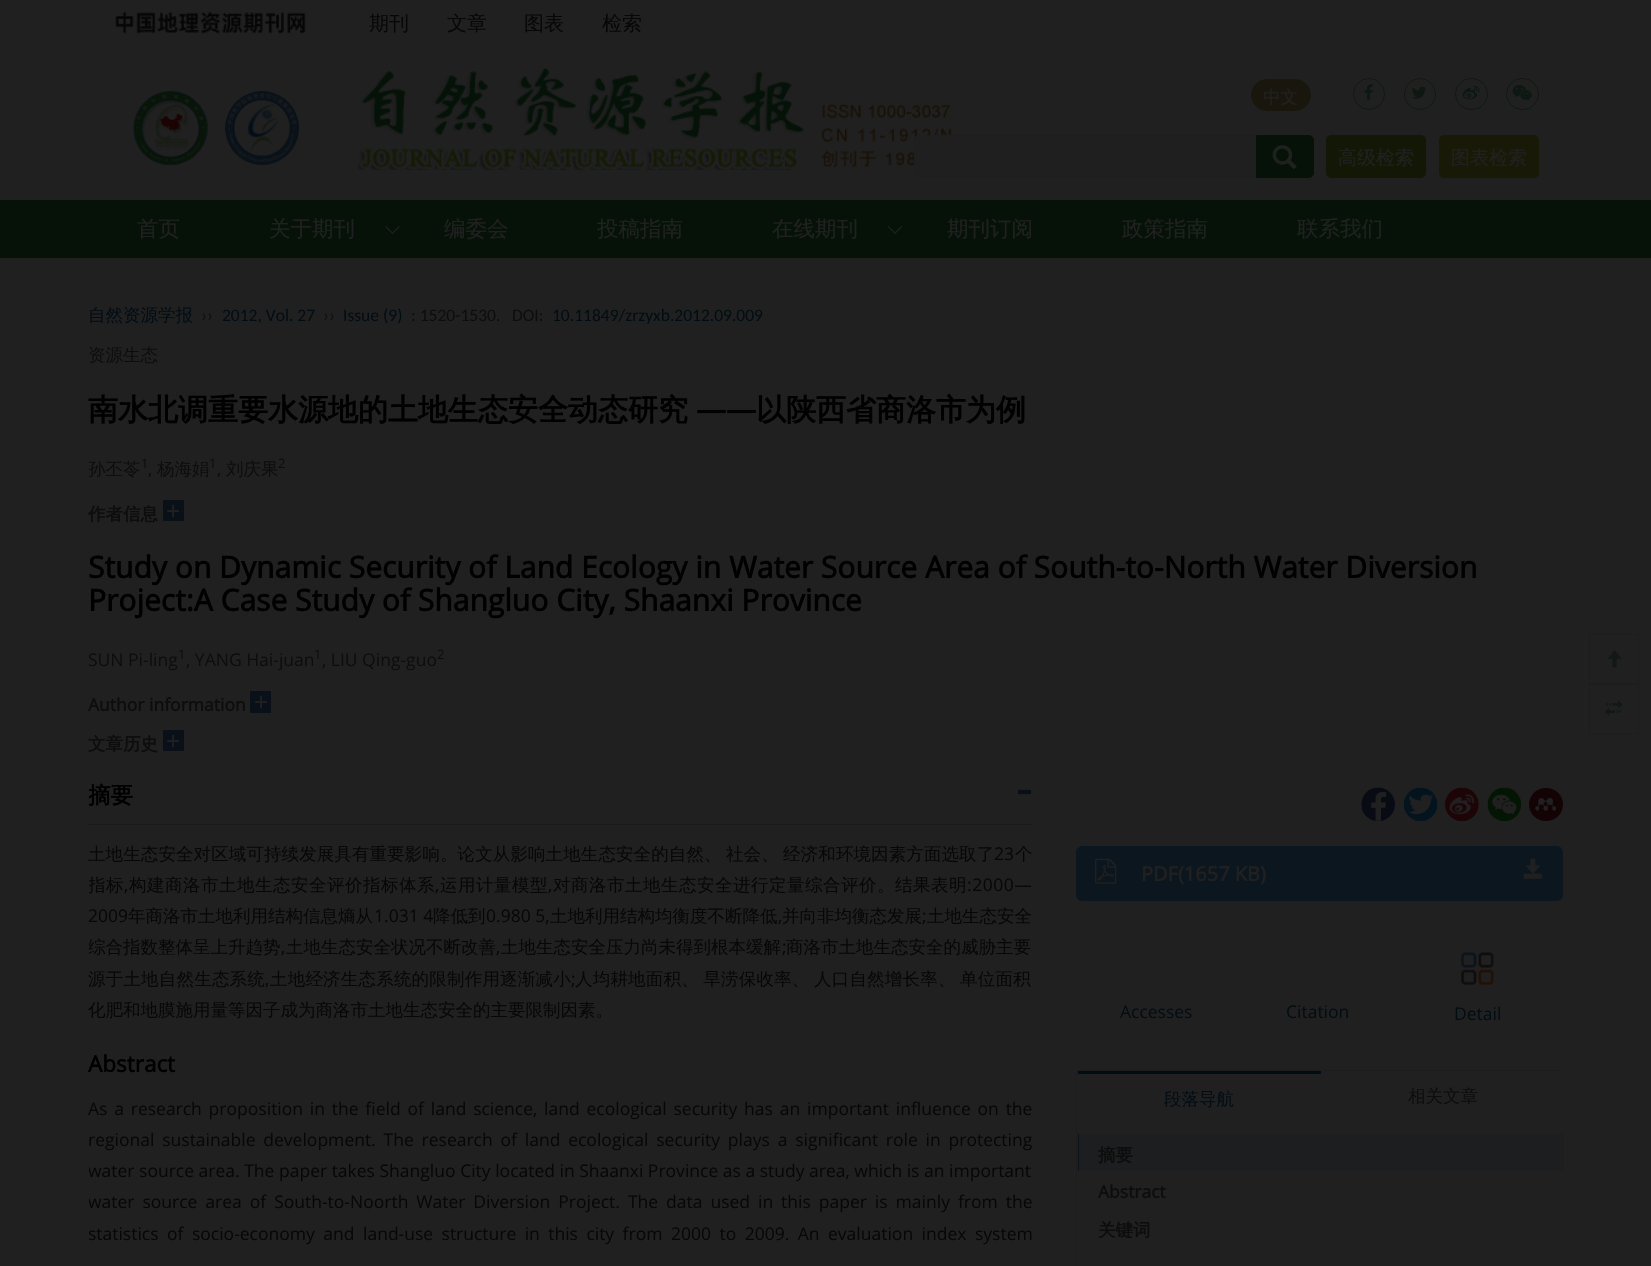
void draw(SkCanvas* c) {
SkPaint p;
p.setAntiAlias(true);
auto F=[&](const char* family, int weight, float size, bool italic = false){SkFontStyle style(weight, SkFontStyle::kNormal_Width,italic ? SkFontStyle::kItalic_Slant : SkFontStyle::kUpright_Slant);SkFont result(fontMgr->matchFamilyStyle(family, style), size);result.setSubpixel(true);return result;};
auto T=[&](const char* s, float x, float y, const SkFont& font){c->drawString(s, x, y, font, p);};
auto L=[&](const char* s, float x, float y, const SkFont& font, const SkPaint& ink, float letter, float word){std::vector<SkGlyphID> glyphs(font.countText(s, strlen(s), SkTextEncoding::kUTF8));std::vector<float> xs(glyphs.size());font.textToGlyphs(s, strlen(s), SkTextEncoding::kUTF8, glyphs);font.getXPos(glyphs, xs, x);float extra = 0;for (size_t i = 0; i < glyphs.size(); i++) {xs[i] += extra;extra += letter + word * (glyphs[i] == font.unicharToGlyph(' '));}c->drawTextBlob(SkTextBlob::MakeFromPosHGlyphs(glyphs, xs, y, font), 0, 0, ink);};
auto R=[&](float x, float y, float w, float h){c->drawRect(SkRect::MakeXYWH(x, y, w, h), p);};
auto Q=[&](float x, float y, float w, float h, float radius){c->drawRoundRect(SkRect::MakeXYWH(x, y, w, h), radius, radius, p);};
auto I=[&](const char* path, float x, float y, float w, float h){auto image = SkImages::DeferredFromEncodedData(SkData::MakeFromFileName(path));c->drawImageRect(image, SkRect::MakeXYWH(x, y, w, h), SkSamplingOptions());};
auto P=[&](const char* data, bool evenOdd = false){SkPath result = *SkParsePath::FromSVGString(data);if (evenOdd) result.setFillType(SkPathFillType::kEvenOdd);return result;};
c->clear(0xff202020);
I("1.png",115,11,191,23);
auto f1 = F("WenQuanYi Zen Hei",500,20);
p.setColor(0xff070707);
T("期刊",369,30,f1);
T("文章",447,30,f1);
T("图表",524,30,f1);
T("检索",602,30,f1);
I("2.png",133,91,75,74);
I("3.png",225,91,75,74);
I("4.png",357,68,595,102);
p.setColor(0xff19170d);
Q(1251,79,60,32,16);
auto f2 = F("WenQuanYi Zen Hei",500,17.5);
p.setColor(0xff202020);
T("中文",1263,103,f2);
p.setStroke(true);
p.setStrokeWidth(1);
p.setColor(0xff0e1813);
c->drawCircle(1369,94,15.5,p);
I("5.png",1364,84,9,16);
c->drawCircle(1420,94,15.5,p);
I("6.png",1412,86,15,13);
c->drawRoundRect(SkRect::MakeXYWH(1455.5,78.5,32,31),15.5,15.5,p);
I("7.png",1462,86,18,14);
c->drawRoundRect(SkRect::MakeXYWH(1506.5,78.5,32,31),15.5,15.5,p);
I("8.png",1512,84,20,17);
p.setStroke(false);
p.setColor(0xff1f1f20);
c->drawRoundRect(SkRect::MakeXYWH(914.5,135.5,345,42),4.5,4.5,p);
p.setStroke(true);
p.setColor(0xff1e1e1e);
c->drawRoundRect(SkRect::MakeXYWH(914.5,135.5,345,42),4.5,4.5,p);
p.setStroke(false);
p.setColor(0xff061208);
c->drawPath(P("M1256.5 135.5h52.5c2.5 0 4.5 2 4.5 4.5v33c0 2.5-2 4.5-4.5 4.5h-52.5z"),p);
p.setStroke(true);
c->drawPath(P("M1256.5 135.5h52.5c2.5 0 4.5 2 4.5 4.5v33c0 2.5-2 4.5-4.5 4.5h-52.5z"),p);
I("9.png",1272,145,25,24);
p.setStroke(false);
p.setColor(0xff121706);
Q(1326,135,100,43,5);
auto f3 = F("WenQuanYi Zen Hei",500,19);
p.setColor(0xff202020);
T("高级检索",1338,164,f3);
p.setColor(0xff191908);
Q(1439,135,100,43,5);
p.setColor(0xff202020);
T("图表检索",1451,164,f3);
p.setColor(0xff061208);
R(0,200,1651,58);
auto f4 = F("WenQuanYi Zen Hei",500,21.5);
p.setColor(0xff202020);
T("首页",137,236,f4);
T("关于期刊",269,236,f4);
I("10.png",385,226,15,8);
T("编委会",444,236,f4);
T("投稿指南",597,236,f4);
T("在线期刊",772,236,f4);
I("11.png",887,226,16,8);
T("期刊订阅",947,236,f4);
T("政策指南",1122,236,f4);
T("联系我们",1297,236,f4);
p.setColor(0xff020d13);
T("自然资源学报",88,321,f2);
auto f5 = F("Carlito",400,17.5);
p.setColor(0xff0d0d0d);
T("››",201,321,f5);
p.setColor(0xff020d13);
T("2012, Vol. 27",222,321,f5);
p.setColor(0xff0d0d0d);
T("››",323,321,f5);
p.setColor(0xff020d13);
T("Issue (9)",343,321,f5);
p.setColor(0xff0d0d0d);
T(": 1520-1530.",411,321,f5);
T("DOI:",512,321,f5);
p.setColor(0xff020d13);
T("10.11849/zrzyxb.2012.09.009",552,321,f5);
p.setColor(0xff0d0d0d);
T("资源生态",88,361,f2);
auto f6 = F("WenQuanYi Zen Hei",700,30);
p.setColor(0xff000000);
T("南水北调重要水源地的土地生态安全动态研究",88,420,f6);
auto f7 = F("Open Sans",700,30);
T("——",696,420,f7);
T("以陕西省商洛市为例",756,420,f6);
c->save();
c->clipRect(SkRect::MakeXYWH(89,450,1475,38));
p.setColor(0xff0d0d0d);
T("孙丕苓",88,475,f2);
c->restore();
auto f8 = F("Open Sans",400,13);
T("1",141,468,f8);
auto f9 = F("Open Sans",400,17.5);
T(",",148,475,f9);
T("杨海娟",157,475,f2);
T("1",209,468,f8);
T(",",217,475,f9);
T("刘庆果",226,475,f2);
T("2",278,468,f8);
auto f10 = F("WenQuanYi Zen Hei",700,17.5);
T("作者信息",88,520,f10);
p.setColor(0xff0a1017);
R(163,500,21,21);
auto f11 = F("Open Sans",400,25);
p.setColor(0xff202020);
T("+",166,520,f11);
p.setColor(0xff000000);
T("Study on Dynamic Security of Land Ecology in Water Source Area of South-to-North Water Diversion",88,578,f7);
T("Project:A Case Study of Shangluo City, Shaanxi Province",88,611,f7);
p.setColor(0xff0d0d0d);
T("SUN Pi-ling",88,666,f9);
T("1",178,659,f8);
T(", YANG Hai-juan",186,666,f9);
T("1",314,659,f8);
T(", LIU Qing-guo",322,666,f9);
T("2",437,659,f8);
auto f12 = F("Open Sans",700,17.5);
T("Author information",88,711,f12);
p.setColor(0xff0a1017);
R(250,691,21,22);
p.setColor(0xff202020);
T("+",254,711,f11);
p.setColor(0xff0d0d0d);
T("文章历史",88,750,f10);
p.setColor(0xff0a1017);
R(163,730,21,21);
p.setColor(0xff202020);
T("+",166,750,f11);
p.setColor(0xff1a1a1a);
R(89,824,944,1);
c->save();
c->clipRect(SkRect::MakeXYWH(89,775,944,49));
auto f13 = F("WenQuanYi Zen Hei",700,22.5);
p.setColor(0xff000000);
T("摘要",88,803,f13);
c->restore();
I("12.png",1017,789,15,6);
p.setColor(0xff070707);
L("土地生态安全对区域可持续发展具有重要影响。论文从影响土地生态安全的自然、 社会、 经济和环境因素方面选取了",88,860,f2,p,.1,-1);
L("23",994,860,f9,p,.1,0);
L("个",1015,860,f2,p,.1,0);
c->save();
c->clipRect(SkRect::MakeXYWH(89,775,1475,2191));
L("指标",88,891,f2,p,.5,0);
c->restore();
L(",",124,891,f9,p,.5,0);
L("构建商洛市土地生态安全评价指标体系",129,891,f2,p,.5,0);
L(",",435,891,f9,p,.5,0);
L("运用计量模型",440,891,f2,p,.5,0);
L(",",548,891,f9,p,.5,0);
L("对商洛市土地生态安全进行定量综合评价。结果表明",553,891,f2,p,.5,0);
L(":2000—",967,891,f9,p,.5,0);
T("2009",88,922,f9);
T("年商洛市土地利用结构信息熵从",128,922,f2);
T("1.031 4",374,922,f9);
T("降低到",433,922,f2);
T("0.980 5,",486,922,f9);
T("土地利用结构均衡度不断降低",550,922,f2);
T(",",778,922,f9);
T("并向非均衡态发展",782,922,f2);
T(";",922,922,f9);
T("土地生态安全",927,922,f2);
c->save();
c->clipRect(SkRect::MakeXYWH(89,775,1475,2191));
T("综合指数整体呈上升趋势",88,953,f2);
c->restore();
T(",",281,953,f9);
T("土地生态安全状况不断改善",286,953,f2);
T(",",496,953,f9);
T("土地生态安全压力尚未得到根本缓解",501,953,f2);
T(";",782,953,f9);
T("商洛市土地生态安全的威胁主要",786,953,f2);
L("源于土地自然生态系统",88,985,f2,p,.2,0);
L(",",265,985,f9,p,.2,0);
L("土地经济生态系统的限制作用逐渐减小",270,985,f2,p,.2,0);
L(";",571,985,f9,p,.2,0);
L("人均耕地面积、 旱涝保收率、 人口自然增长率、 单位面积",575,985,f2,p,.2,-1);
T("化肥和地膜施用量等因子成为商洛市土地生态安全的主要限制因素。",88,1016,f2);
auto f14 = F("Open Sans",700,22.5);
p.setColor(0xff000000);
T("Abstract",88,1072,f14);
p.setColor(0xff070707);
L("As a research proposition in the field of land science, land ecological security has an important influence on the",88,1115,f9,p,0,2.25);
L("regional sustainable development. The research of land ecological security plays a significant role in protecting",88,1146,f9,p,0,3.25);
c->save();
c->clipRect(SkRect::MakeXYWH(89,775,1475,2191));
T("water source area. The paper takes Shangluo City located in Shaanxi Province as a study area, which is an important",88,1177,f9);
L("water source area of South-to-Noorth Water Diversion Project. The data used in this paper is mainly from the",88,1208,f9,p,0,3.4);
c->restore();
L("statistics of socio-economy and land-use structure in this city from 2000 to 2009. An evaluation index system",88,1240,f9,p,0,3.9);
I("13.png",1361,787,34,35);
I("14.png",1403,787,35,35);
I("15.png",1445,787,34,35);
I("16.png",1487,787,35,35);
I("17.png",1529,788,34,33);
p.setColor(0xff0c161e);
Q(1076,846,487,55,6);
I("18.png",1095,858,22,26);
auto f15 = F("Open Sans",700,20);
p.setColor(0xff202020);
T("PDF(1657 KB)",1141,881,f15);
I("19.png",1523,858,20,21);
p.setColor(0xff020d13);
T("Accesses",1120,1018,f9);
T("Citation",1286,1018,f9);
I("20.png",1461,952,33,33);
T("Detail",1454,1020,f9);
c->save();
c->clipRect(SkRect::MakeXYWH(89,775,1475,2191));
p.setStroke(true);
p.setColor(0xff1d1d1e);
c->drawRect(SkRect::MakeXYWH(1076.5,1070.5,488,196),p);
c->restore();
p.setStroke(false);
p.setColor(0xff020d13);
R(1078,1071,243,3);
T("段落导航",1164,1105,f2);
p.setColor(0xff0d0d0d);
T("相关文章",1408,1102,f2);
p.setColor(0xff1d1e1f);
R(1079,1134,485,37);
p.setColor(0xff0d1118);
R(1078,1134,1,37);
p.setColor(0xff0d0d0d);
T("摘要",1098,1161,f10);
T("Abstract",1098,1198,f12);
T("关键词",1098,1236,f10);
p.setStroke(true);
p.setColor(0xff1d1d1d);
c->drawRect(SkRect::MakeXYWH(1589.5,634.5,49,49),p);
I("21.png",1607,650,15,18);
c->drawRect(SkRect::MakeXYWH(1589.5,684.5,49,49),p);
I("22.png",1605,700,18,16);
}
